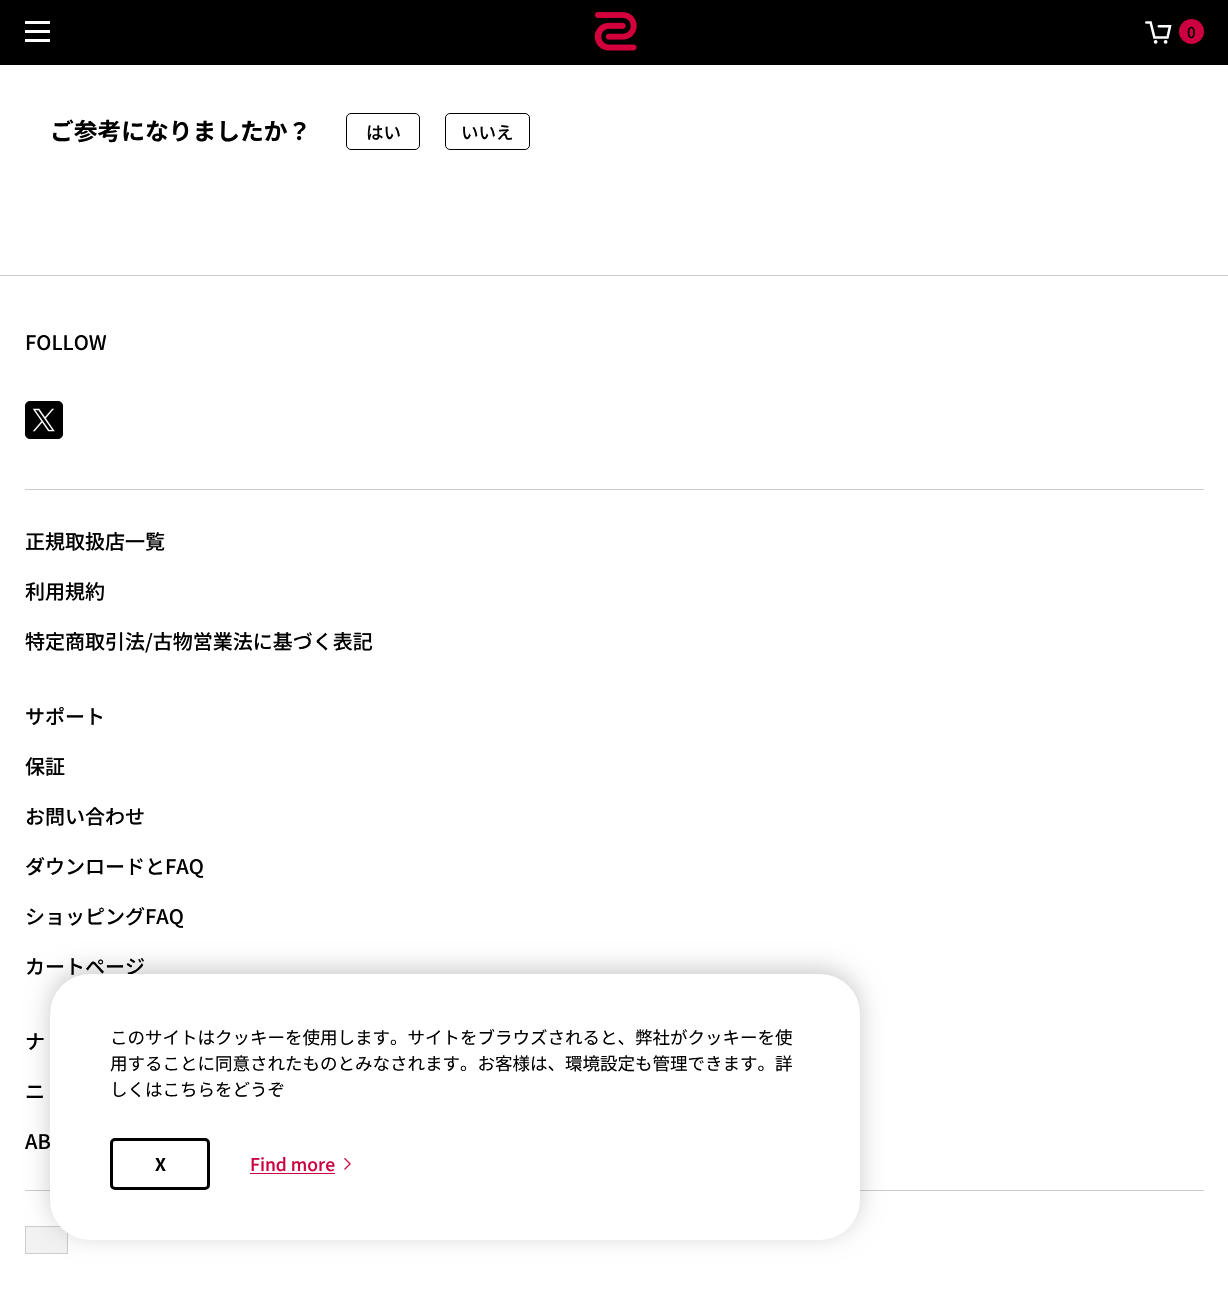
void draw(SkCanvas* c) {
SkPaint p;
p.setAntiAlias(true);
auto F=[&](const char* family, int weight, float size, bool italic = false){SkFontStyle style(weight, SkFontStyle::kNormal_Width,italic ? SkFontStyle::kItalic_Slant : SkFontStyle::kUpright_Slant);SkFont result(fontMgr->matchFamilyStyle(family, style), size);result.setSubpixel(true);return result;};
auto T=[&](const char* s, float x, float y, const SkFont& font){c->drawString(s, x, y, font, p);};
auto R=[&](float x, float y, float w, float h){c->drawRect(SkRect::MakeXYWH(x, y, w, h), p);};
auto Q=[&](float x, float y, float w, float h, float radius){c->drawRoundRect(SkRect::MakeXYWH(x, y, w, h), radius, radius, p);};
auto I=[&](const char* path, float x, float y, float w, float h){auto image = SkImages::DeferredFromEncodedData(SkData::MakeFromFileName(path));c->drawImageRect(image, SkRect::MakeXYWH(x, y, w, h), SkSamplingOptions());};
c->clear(0xffffffff);
p.setColor(0xff000000);
R(0,0,1228,65);
p.setColor(0xffffffff);
R(25,21,25,3);
R(25,30,25,3);
R(25,39,25,3);
I("1.png",594,12,43,39);
I("2.png",1145,21,27,23);
p.setColor(0xffcc0040);
c->drawCircle(1191.5,31.5,12.5,p);
auto f1 = F("Noto Sans JP",500,15);
p.setColor(0xff000000);
T("0",1187,38,f1);
p.setColor(0xffcccccc);
R(25,1190,1179,1);
p.setColor(0xfff2f2f2);
c->drawRect(SkRect::MakeXYWH(25.5,1226.5,42,27),p);
p.setStroke(true);
p.setStrokeWidth(1);
p.setColor(0xffcccccc);
c->drawRect(SkRect::MakeXYWH(25.5,1226.5,42,27),p);
p.setStroke(false);
p.setColor(0x33000000);
p.setMaskFilter(SkMaskFilter::MakeBlur(kNormal_SkBlurStyle, 12.5));
c->drawRoundRect(SkRect::MakeXYWH(50,969,810,266),40,40,p);
p.setMaskFilter(nullptr);
auto f2 = F("Noto Sans JP",500,20);
p.setColor(0xff000000);
T("カートページ",25,974,f2);
p.setColor(0xffffffff);
Q(50,974,810,266,40);
auto f3 = F("Noto Sans JP",400,17.5);
p.setColor(0xff000000);
T("このサイトはクッキーを使用します。サイトをブラウズされると、弊社がクッキーを使",110,1044,f3);
T("用することに同意されたものとみなされます。お客様は、環境設定も管理できます。詳",110,1070,f3);
T("しくはこちらをどうぞ",110,1096,f3);
p.setStroke(true);
p.setStrokeWidth(3);
c->drawRoundRect(SkRect::MakeXYWH(111.5,1139.5,97,49),3.5,3.5,p);
auto f4 = F("Noto Sans JP",700,17.5);
p.setStroke(false);
T("X",155,1171,f4);
auto f5 = F("Noto Sans JP",500,17.5);
p.setColor(0xffcc0040);
T("Find more",250,1171,f5);
R(250,1173,85,1);
I("3.png",344,1157,7,13);
auto f6 = F("Noto Sans JP",700,23.75);
p.setColor(0xff000000);
T("ご参考になりましたか？",50,140,f6);
p.setStroke(true);
p.setStrokeWidth(1);
c->drawRoundRect(SkRect::MakeXYWH(346.5,113.5,73,36),4.5,4.5,p);
p.setStroke(false);
T("はい",366,139,f5);
p.setStroke(true);
c->drawRoundRect(SkRect::MakeXYWH(445.5,113.5,84,36),4.5,4.5,p);
p.setStroke(false);
T("いいえ",461,139,f5);
p.setColor(0xffcccccc);
R(0,275,1228,1);
p.setColor(0xff000000);
T("FOLLOW",25,350,f2);
I("4.png",25,401,38,38);
p.setColor(0xffcccccc);
R(25,489,1179,1);
p.setColor(0xff000000);
T("正規取扱店一覧",25,549,f2);
T("利用規約",25,599,f2);
T("特定商取引法/古物営業法に基づく表記",25,649,f2);
T("サポート",25,724,f2);
T("保証",25,774,f2);
T("お問い合わせ",25,824,f2);
T("ダウンロードとFAQ",25,874,f2);
T("ショッピングFAQ",25,924,f2);
T("ナ",25,1049,f2);
T("ニ",25,1099,f2);
T("AB",25,1149,f2);
}
